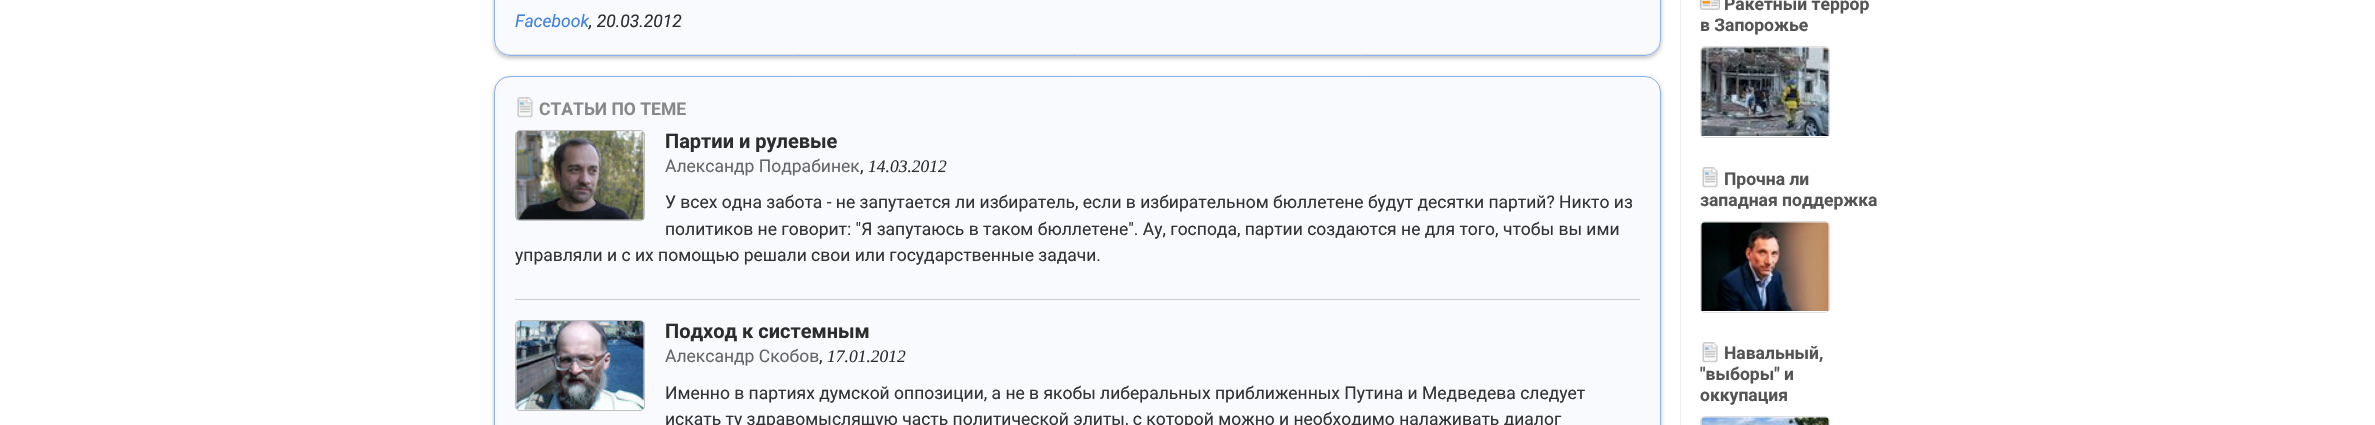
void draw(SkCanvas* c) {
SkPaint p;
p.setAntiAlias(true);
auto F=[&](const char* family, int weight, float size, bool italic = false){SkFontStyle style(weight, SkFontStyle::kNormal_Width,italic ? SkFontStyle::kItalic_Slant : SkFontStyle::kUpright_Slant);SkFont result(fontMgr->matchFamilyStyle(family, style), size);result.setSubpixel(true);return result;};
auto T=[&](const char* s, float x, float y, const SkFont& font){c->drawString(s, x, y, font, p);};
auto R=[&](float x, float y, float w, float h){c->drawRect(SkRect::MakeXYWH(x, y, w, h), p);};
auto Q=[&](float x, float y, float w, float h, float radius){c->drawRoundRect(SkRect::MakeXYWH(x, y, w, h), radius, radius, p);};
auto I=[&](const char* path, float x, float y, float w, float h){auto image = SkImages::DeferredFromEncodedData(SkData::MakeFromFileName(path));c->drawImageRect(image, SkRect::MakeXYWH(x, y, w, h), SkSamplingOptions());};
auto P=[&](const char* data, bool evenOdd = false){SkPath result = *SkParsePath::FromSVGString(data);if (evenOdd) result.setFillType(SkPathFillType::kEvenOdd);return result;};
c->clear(0xffffffff);
p.setColor(0x40000000);
p.setMaskFilter(SkMaskFilter::MakeBlur(kNormal_SkBlurStyle, 2));
c->drawRoundRect(SkRect::MakeXYWH(494,-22,1167,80),16,16,p);
p.setMaskFilter(nullptr);
p.setColor(0xfff8fafe);
Q(494,-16,1167,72,16);
p.setColor(0xffdfe1e5);
c->drawPath(P("M495 39v1c0 8 7 15 15 15h1135c8 0 15-7 15-15v-1c0 8-7 15-15 15h-1135c-8 0-15-7-15-15z"),p);
p.setStroke(true);
p.setStrokeWidth(1);
p.setColor(0xff8ab1ec);
c->drawRoundRect(SkRect::MakeXYWH(494.5,-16.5,1166,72),15.5,15.5,p);
auto f1 = F("Roboto",400,17.5,true);
p.setStroke(false);
p.setColor(0xff4080df);
T("Facebook",515,27,f1);
p.setColor(0xff2d2d2d);
T(", 20.03.2012",589,27,f1);
p.setColor(0x40000000);
p.setMaskFilter(SkMaskFilter::MakeBlur(kNormal_SkBlurStyle, 2));
c->drawRoundRect(SkRect::MakeXYWH(494,78,1167,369),16,16,p);
p.setMaskFilter(nullptr);
p.setColor(0xfff8fafe);
c->drawRoundRect(SkRect::MakeXYWH(494.5,76.5,1166,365),15.5,15.5,p);
p.setStroke(true);
p.setColor(0xff8ab1ec);
c->drawRoundRect(SkRect::MakeXYWH(494.5,76.5,1166,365),15.5,15.5,p);
I("1.png",517,97,16,21);
auto f2 = F("Roboto",700,17.5);
p.setStroke(false);
p.setColor(0xff888888);
T("СТАТЬИ ПО ТЕМЕ",539,115,f2);
p.setColor(0xffffffff);
Q(515,130,130,91,5);
p.setStroke(true);
p.setColor(0x40000000);
c->drawRoundRect(SkRect::MakeXYWH(515.5,130.5,129,90),4.5,4.5,p);
I("2.png",516,131,128,89);
auto f3 = F("Roboto",700,20);
p.setStroke(false);
p.setColor(0xff2d2d2d);
T("Партии и рулевые",665,148,f3);
auto f4 = F("Roboto",400,17.5);
p.setColor(0xff666666);
T("Александр Подрабинек",665,172,f4);
p.setColor(0xff2d2d2d);
T(",",860,172,f4);
auto f5 = F("Liberation Serif",400,17.5,true);
T("14.03.2012",868,172,f5);
p.setColor(0xff333333);
T("У всех одна забота - не запутается ли избиратель, если в избирательном бюллетене будут десятки партий? Никто из",665,208,f4);
T("политиков не говорит: \"Я запутаюсь в таком бюллетене\". Ау, господа, партии создаются не для того, чтобы вы ими",665,235,f4);
T("управляли и с их помощью решали свои или государственные задачи.",515,261,f4);
p.setColor(0xffcccccc);
R(515,299,1125,1);
p.setColor(0xffffffff);
Q(515,320,130,91,5);
p.setStroke(true);
p.setColor(0x40000000);
c->drawRoundRect(SkRect::MakeXYWH(515.5,320.5,129,90),4.5,4.5,p);
I("3.png",516,321,128,89);
p.setStroke(false);
p.setColor(0xff2d2d2d);
T("Подход к системным",665,338,f3);
p.setColor(0xff666666);
T("Александр Скобов",665,362,f4);
p.setColor(0xff2d2d2d);
T(",",819,362,f4);
T("17.01.2012",827,362,f5);
p.setColor(0xff333333);
T("Именно в партиях думской оппозиции, а не в якобы либеральных приближенных Путина и Медведева следует",665,399,f4);
T("искать ту здравомыслящую часть политической элиты, с которой можно и необходимо налаживать диалог",665,425,f4);
p.setColor(0xffeeeeee);
R(1680,0,1,425);
I("4.png",1700,0,20,10);
p.setColor(0xff545454);
T("Ракетный террор",1724,10,f2);
T("в Запорожье",1700,31,f2);
p.setStroke(true);
p.setColor(0xffdfdfdf);
c->drawRoundRect(SkRect::MakeXYWH(1700.5,46.5,129,91),4.5,4.5,p);
I("5.png",1701,47,128,89);
I("6.png",1702,167,16,21);
p.setStroke(false);
p.setColor(0xff545454);
T("Прочна ли",1724,185,f2);
T("западная поддержка",1700,206,f2);
p.setStroke(true);
p.setColor(0xffdfdfdf);
c->drawRoundRect(SkRect::MakeXYWH(1700.5,221.5,129,91),4.5,4.5,p);
I("7.png",1701,222,128,89);
I("6.png",1702,342,16,21);
p.setStroke(false);
p.setColor(0xff545454);
T("Навальный,",1724,359,f2);
T("\"выборы\" и",1700,380,f2);
T("оккупация",1700,401,f2);
p.setStroke(true);
p.setColor(0xffdfdfdf);
c->drawRoundRect(SkRect::MakeXYWH(1700.5,416.5,129,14),4.5,4.5,p);
I("8.png",1701,417,128,8);
}
